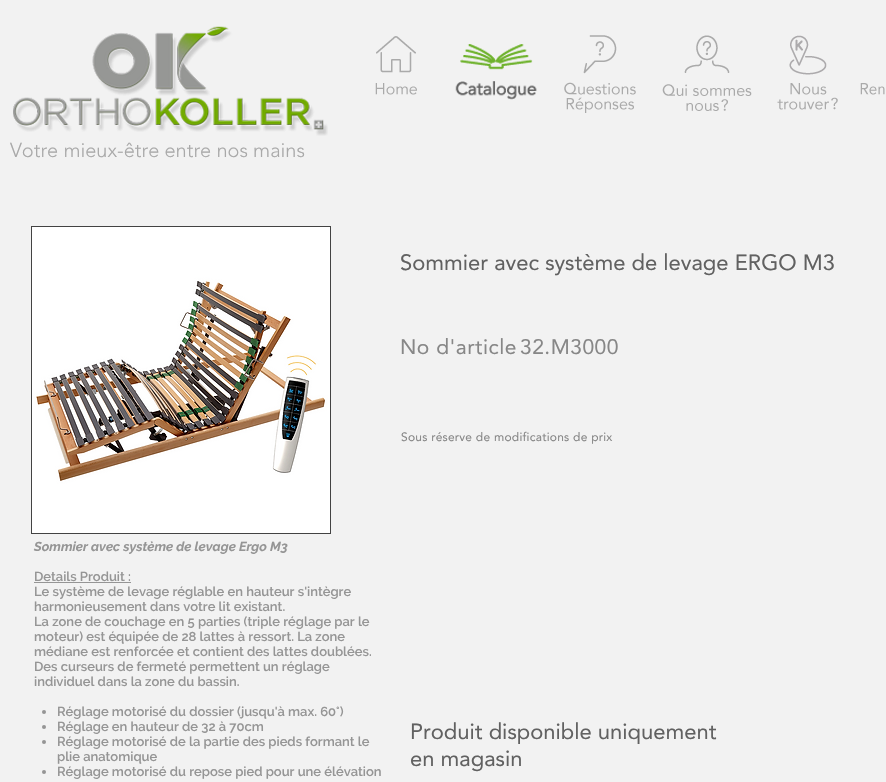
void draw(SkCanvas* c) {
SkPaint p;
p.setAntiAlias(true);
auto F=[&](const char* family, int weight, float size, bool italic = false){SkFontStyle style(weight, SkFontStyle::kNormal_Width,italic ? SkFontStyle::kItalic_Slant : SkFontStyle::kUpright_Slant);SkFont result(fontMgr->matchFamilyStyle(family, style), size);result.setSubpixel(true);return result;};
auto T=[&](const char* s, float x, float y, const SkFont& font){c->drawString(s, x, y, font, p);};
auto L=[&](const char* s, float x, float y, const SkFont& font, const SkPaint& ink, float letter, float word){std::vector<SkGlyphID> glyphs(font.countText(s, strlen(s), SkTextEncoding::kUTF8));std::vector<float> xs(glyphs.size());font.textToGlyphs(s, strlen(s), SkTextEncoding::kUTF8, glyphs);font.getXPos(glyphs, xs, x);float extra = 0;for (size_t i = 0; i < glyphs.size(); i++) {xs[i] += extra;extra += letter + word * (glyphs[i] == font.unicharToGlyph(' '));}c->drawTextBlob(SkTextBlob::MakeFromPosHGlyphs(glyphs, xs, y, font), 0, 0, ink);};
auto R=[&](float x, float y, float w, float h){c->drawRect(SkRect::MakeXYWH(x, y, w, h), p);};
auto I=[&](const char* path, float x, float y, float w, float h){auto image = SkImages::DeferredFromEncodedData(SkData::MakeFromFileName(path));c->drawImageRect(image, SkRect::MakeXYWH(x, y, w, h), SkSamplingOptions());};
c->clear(0xfff2f2f2);
I("1.png",13,26,315,110);
I("2.png",375,36,42,59);
I("3.png",564,35,72,78);
I("4.png",662,35,90,76);
I("5.png",777,35,61,75);
I("6.png",860,83,25,12);
I("7.png",455,44,82,56);
auto f1 = F("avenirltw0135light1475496",300,20);
p.setColor(0xffa9a9a9);
T("Votre mieux-être entre nos mains",10,157,f1);
auto f2 = F("Avenir",400,22);
p.setColor(0xff616161);
T("Sommier avec système de levage ERGO M3",400,270,f2);
auto f3 = F("Avenir",400,21);
p.setColor(0xff878787);
L("No d'article",400,354,f3,p,.5,0);
L("32.M3000",520,354,f3,p,.5,0);
auto f4 = F("Avenir",400,12);
L("Sous réserve de modifications de prix",401,441,f4,p,.25,0);
I("8.png",32,227,298,306);
p.setStroke(true);
p.setStrokeWidth(1);
p.setColor(0xff434343);
c->drawRect(SkRect::MakeXYWH(31.5,226.5,299,307),p);
auto f5 = F("Raleway",700,13,true);
p.setStroke(false);
p.setColor(0xff959595);
T("Sommier avec système de levage Ergo M3",34,551,f5);
auto f6 = F("Raleway",600,13);
T("Details Produit :",34,581,f6);
R(34,582,97,1);
T("Le système de levage réglable en hauteur s'intègre",34,596,f6);
T("harmonieusement dans votre lit existant.",34,611,f6);
T("La zone de couchage en 5 parties (triple réglage par le",34,626,f6);
T("moteur) est équipée de 28 lattes à ressort. La zone",34,641,f6);
T("médiane est renforcée et contient des lattes doublées.",34,656,f6);
T("Des curseurs de fermeté permettent un réglage",34,671,f6);
T("individuel dans la zone du bassin.",34,686,f6);
c->drawCircle(44,712,2,p);
T("Réglage motorisé du dossier (jusqu'à max. 60°)",57,716,f6);
c->drawCircle(44,727,2,p);
T("Réglage en hauteur de 32 à 70cm",57,731,f6);
c->drawCircle(44,742,2,p);
T("Réglage motorisé de la partie des pieds formant le",57,746,f6);
T("plie anatomique",57,761,f6);
c->drawCircle(44,772,2,p);
T("Réglage motorisé du repose pied pour une élévation",57,776,f6);
p.setColor(0xff616161);
T("Produit disponible uniquement",410,739,f2);
T("en magasin",410,766,f2);
}
